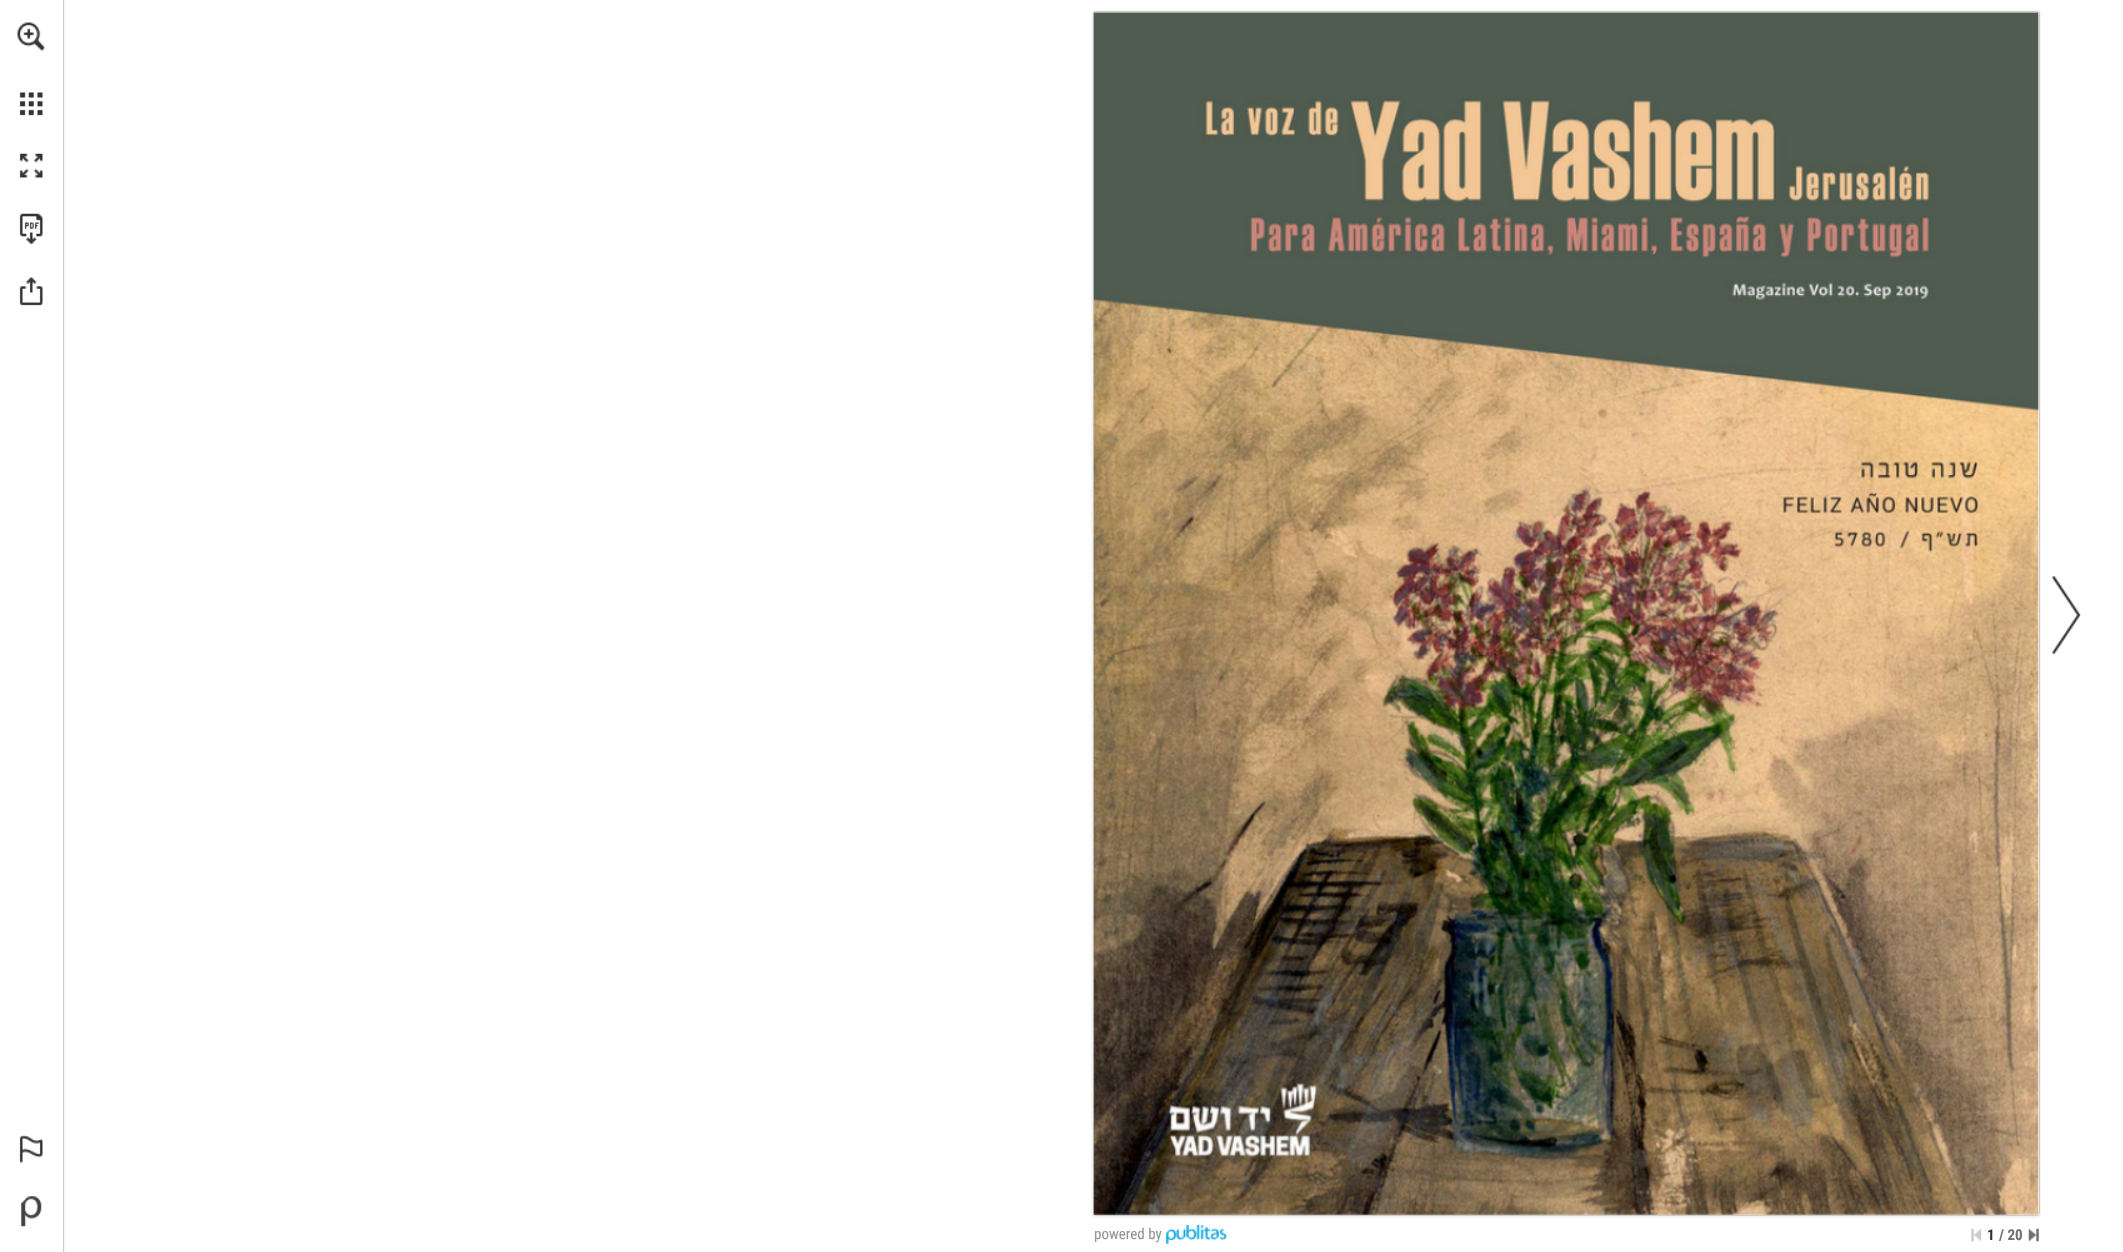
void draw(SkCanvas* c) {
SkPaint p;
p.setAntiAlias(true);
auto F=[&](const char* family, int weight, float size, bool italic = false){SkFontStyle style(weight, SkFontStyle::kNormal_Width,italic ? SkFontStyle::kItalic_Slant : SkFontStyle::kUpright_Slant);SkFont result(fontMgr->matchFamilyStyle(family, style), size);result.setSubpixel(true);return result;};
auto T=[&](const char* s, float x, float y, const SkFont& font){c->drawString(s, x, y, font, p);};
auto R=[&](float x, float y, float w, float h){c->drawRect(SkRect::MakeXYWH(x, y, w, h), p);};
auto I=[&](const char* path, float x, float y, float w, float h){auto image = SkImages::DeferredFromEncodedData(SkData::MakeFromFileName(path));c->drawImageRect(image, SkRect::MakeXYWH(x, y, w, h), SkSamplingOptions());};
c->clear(0xffffffff);
p.setColor(0x33000000);
p.setMaskFilter(SkMaskFilter::MakeBlur(kNormal_SkBlurStyle, .5));
c->drawRect(SkRect::MakeXYWH(1,0,63,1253),p);
p.setMaskFilter(nullptr);
p.setColor(0xffffffff);
R(0,0,63,1252);
I("1.png",17,22,29,30);
I("2.png",19,92,24,24);
I("3.png",19,153,24,25);
I("4.png",19,213,24,31);
I("5.png",19,277,24,29);
I("6.png",19,1135,24,28);
I("7.png",21,1196,21,31);
p.setColor(0x0d121212);
p.setMaskFilter(SkMaskFilter::MakeBlur(kNormal_SkBlurStyle, 1));
c->drawRoundRect(SkRect::MakeXYWH(1091,10,950,1208),4,4,p);
p.setMaskFilter(nullptr);
p.setColor(0xffffffff);
c->drawRoundRect(SkRect::MakeXYWH(1093.5,11.5,946,1204),2,2,p);
p.setStroke(true);
p.setStrokeWidth(1);
p.setColor(0xffcccccc);
c->drawRoundRect(SkRect::MakeXYWH(1093.5,11.5,946,1204),2,2,p);
I("9.png",1094,98,945,1117);
I("8.png",1093,12,946,1203);
I("10.png",1166,1225,61,19);
auto f1 = F("Roboto Condensed",400,15);
p.setStroke(false);
p.setColor(0xff8f969b);
T("powered by",1094,1239,f1);
I("11.png",2052,576,29,78);
I("12.png",1971,1228,11,14);
auto f2 = F("Roboto Condensed",700,15);
p.setColor(0xff333333);
T("1",1987,1240,f2);
p.setColor(0xff707070);
T("/ 20",1999,1240,f2);
I("13.png",2028,1228,11,14);
}
